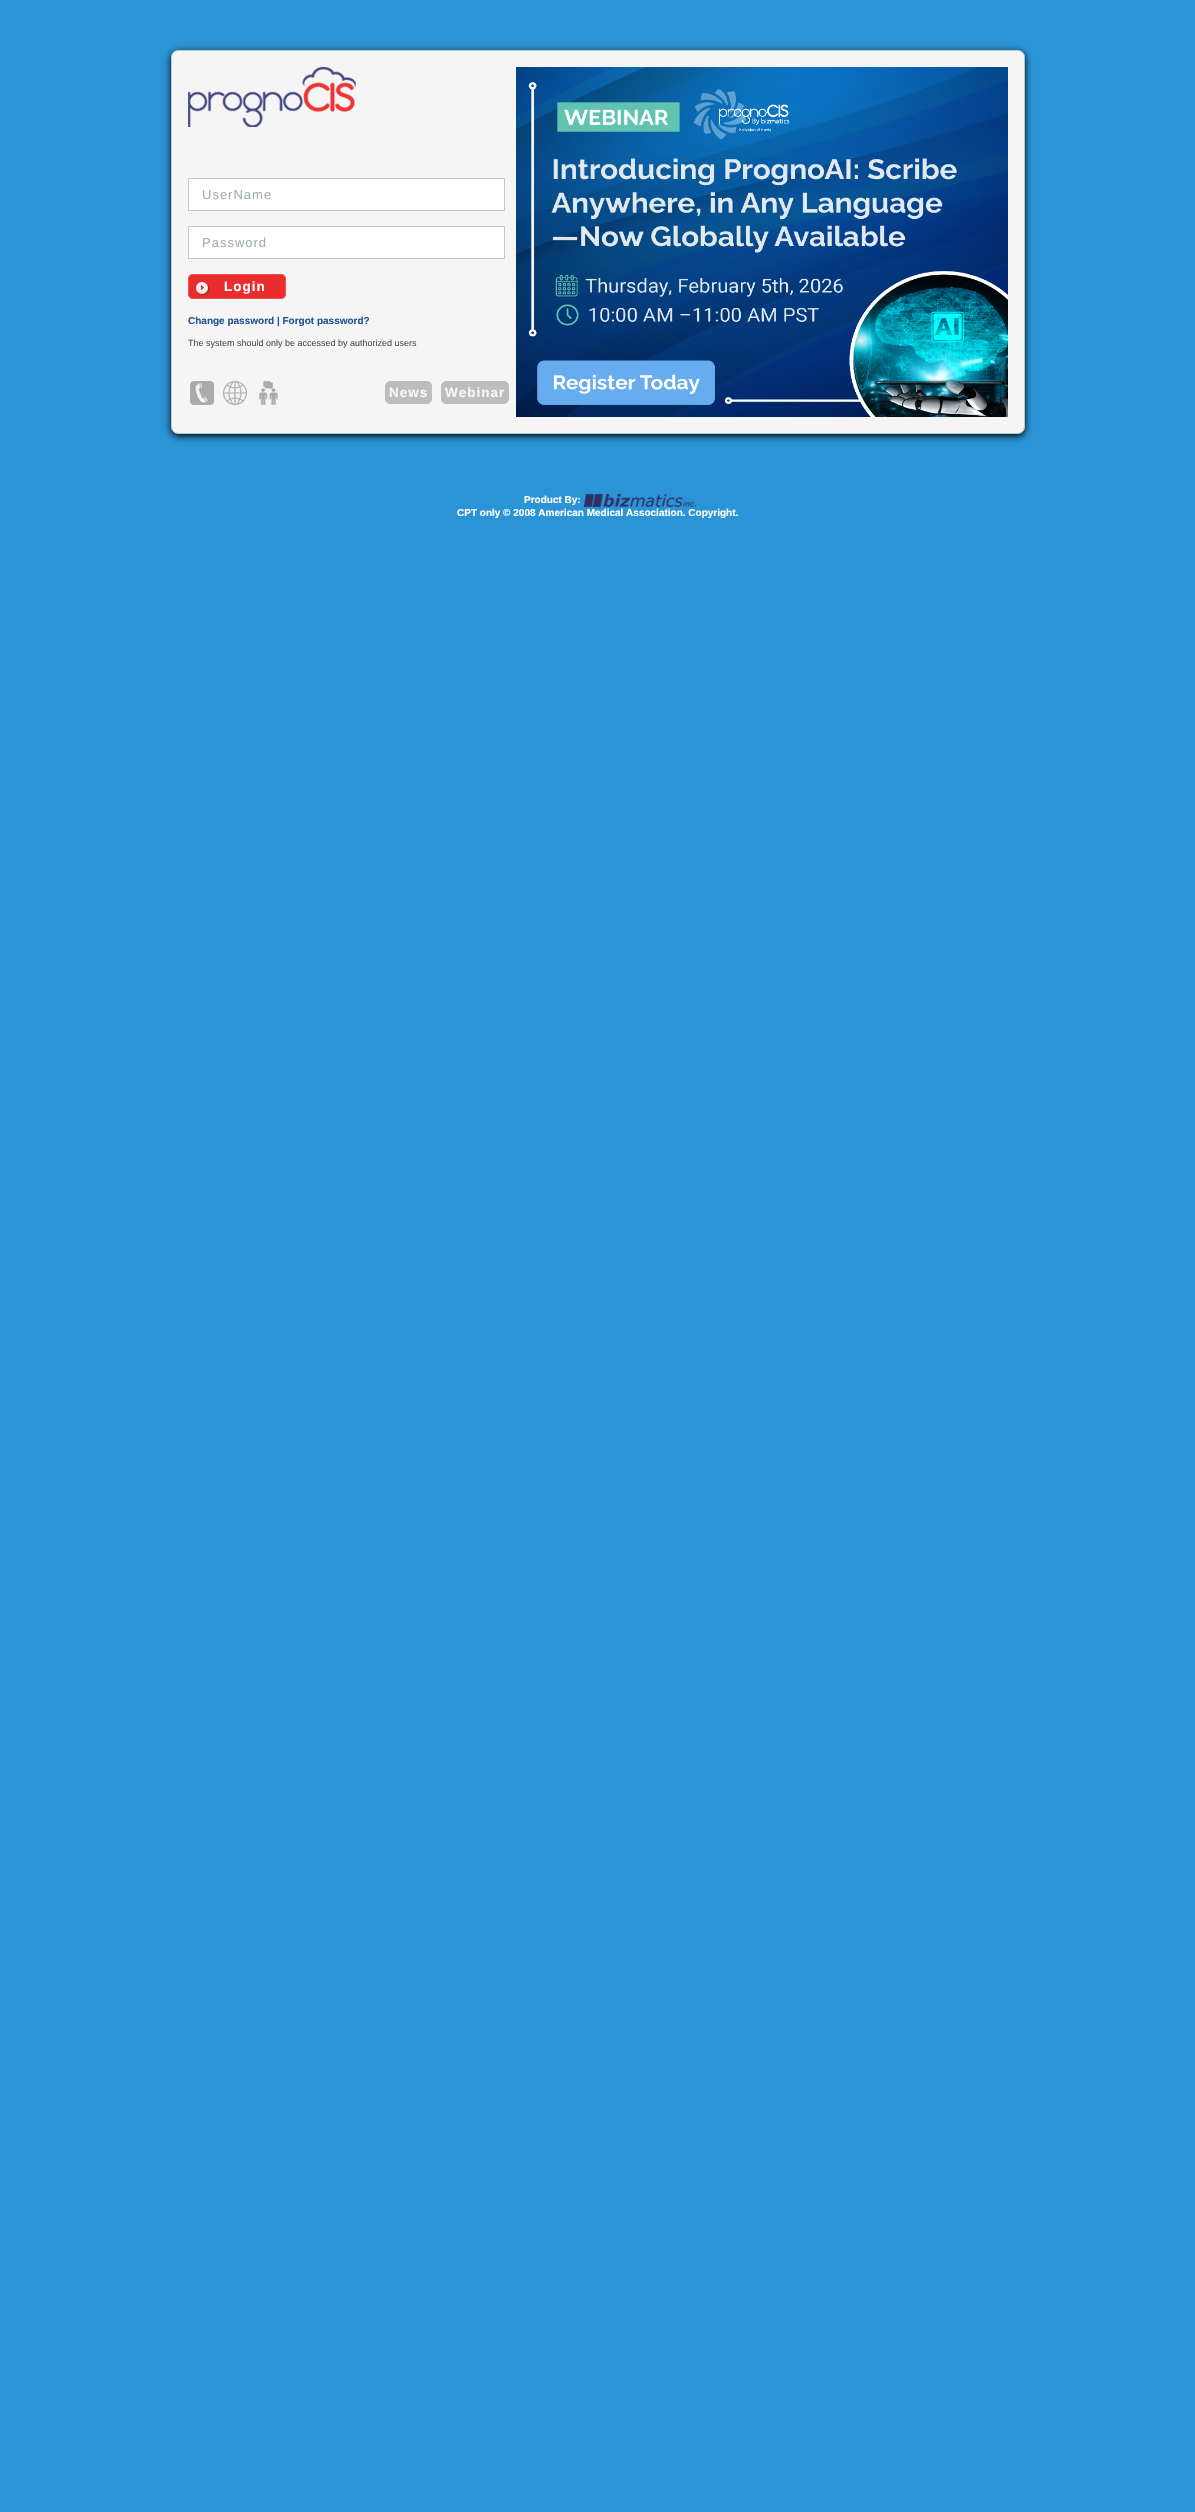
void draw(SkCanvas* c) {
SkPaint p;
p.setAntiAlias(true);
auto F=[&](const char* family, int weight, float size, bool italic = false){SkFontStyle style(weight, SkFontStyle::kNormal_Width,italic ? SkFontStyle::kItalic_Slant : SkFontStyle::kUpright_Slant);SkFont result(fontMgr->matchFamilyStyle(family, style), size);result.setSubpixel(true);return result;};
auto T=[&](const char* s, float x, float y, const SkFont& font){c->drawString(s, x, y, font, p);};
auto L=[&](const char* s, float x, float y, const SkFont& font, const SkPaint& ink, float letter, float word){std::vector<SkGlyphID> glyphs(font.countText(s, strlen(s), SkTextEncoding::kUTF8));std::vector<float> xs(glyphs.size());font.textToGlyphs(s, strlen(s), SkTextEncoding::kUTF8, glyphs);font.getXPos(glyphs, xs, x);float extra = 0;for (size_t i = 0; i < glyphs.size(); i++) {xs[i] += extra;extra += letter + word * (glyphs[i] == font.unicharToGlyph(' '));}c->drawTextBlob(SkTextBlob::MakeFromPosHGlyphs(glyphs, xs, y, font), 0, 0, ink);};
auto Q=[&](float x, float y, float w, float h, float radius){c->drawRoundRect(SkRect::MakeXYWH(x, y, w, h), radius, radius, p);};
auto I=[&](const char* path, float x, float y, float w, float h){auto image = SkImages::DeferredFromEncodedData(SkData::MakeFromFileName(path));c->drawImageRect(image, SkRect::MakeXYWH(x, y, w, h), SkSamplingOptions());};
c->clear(0xff2a94d6);
p.setColor(0xff000000);
p.setMaskFilter(SkMaskFilter::MakeBlur(kNormal_SkBlurStyle, 3.5));
c->drawRoundRect(SkRect::MakeXYWH(171,52,854,384),7,7,p);
p.setMaskFilter(nullptr);
p.setColor(0xfff5f5f5);
c->drawRoundRect(SkRect::MakeXYWH(171.5,50.5,853,383),6.5,6.5,p);
p.setStroke(true);
p.setStrokeWidth(1);
p.setColor(0xffb9c7d3);
c->drawRoundRect(SkRect::MakeXYWH(171.5,50.5,853,383),6.5,6.5,p);
I("1.png",188,67,168,60);
p.setStroke(false);
p.setColor(0xffffffff);
c->drawRect(SkRect::MakeXYWH(188.5,178.5,316,32),p);
p.setStroke(true);
p.setColor(0xffc8c8c8);
c->drawRect(SkRect::MakeXYWH(188.5,178.5,316,32),p);
auto f1 = F("Liberation Sans",400,13);
p.setStroke(false);
p.setColor(0xffa0aeb5);
L("UserName",202,199,f1,p,1,0);
p.setColor(0xffffffff);
c->drawRect(SkRect::MakeXYWH(188.5,226.5,316,32),p);
p.setStroke(true);
p.setColor(0xffc8c8c8);
c->drawRect(SkRect::MakeXYWH(188.5,226.5,316,32),p);
p.setStroke(false);
p.setColor(0xffa0aeb5);
L("Password",202,247,f1,p,1,0);
p.setColor(0xffeb2c2c);
Q(188,274,98,25,5);
I("2.png",196,282,14,14);
p.setStroke(true);
p.setColor(0xffef5151);
c->drawRoundRect(SkRect::MakeXYWH(188.5,274.5,97,24),4.5,4.5,p);
auto f2 = F("Liberation Sans",700,13.5);
p.setStroke(false);
p.setColor(0xffffffff);
L("Login",224,291,f2,p,1,0);
auto f3 = F("Liberation Sans",700,10);
p.setColor(0xff235299);
T("Change password | Forgot password?",188,324,f3);
auto f4 = F("Liberation Sans",400,9);
p.setColor(0xff505050);
T("The system should only be accessed by authorized users",188,346,f4);
I("3.png",190,381,24,24);
I("4.png",223,381,24,24);
I("5.png",259,381,19,24);
p.setColor(0xffbdbdbd);
c->drawRoundRect(SkRect::MakeXYWH(385.5,381.5,46,22),4.5,4.5,p);
p.setStroke(true);
c->drawRoundRect(SkRect::MakeXYWH(385.5,381.5,46,22),4.5,4.5,p);
p.setStroke(false);
p.setColor(0xfff7f7f7);
L("News",389,397,f2,p,1,0);
p.setColor(0xffbdbdbd);
c->drawRoundRect(SkRect::MakeXYWH(441.5,381.5,67,22),4.5,4.5,p);
p.setStroke(true);
c->drawRoundRect(SkRect::MakeXYWH(441.5,381.5,67,22),4.5,4.5,p);
p.setStroke(false);
p.setColor(0xfff7f7f7);
L("Webinar",445,397,f2,p,1,0);
I("6.png",516,67,492,350);
p.setColor(0xffffffff);
T("Product By:",524,503,f3);
I("7.png",584,494,112,13);
T("CPT only © 2008 American Medical Association. Copyright.",457,516,f3);
}
